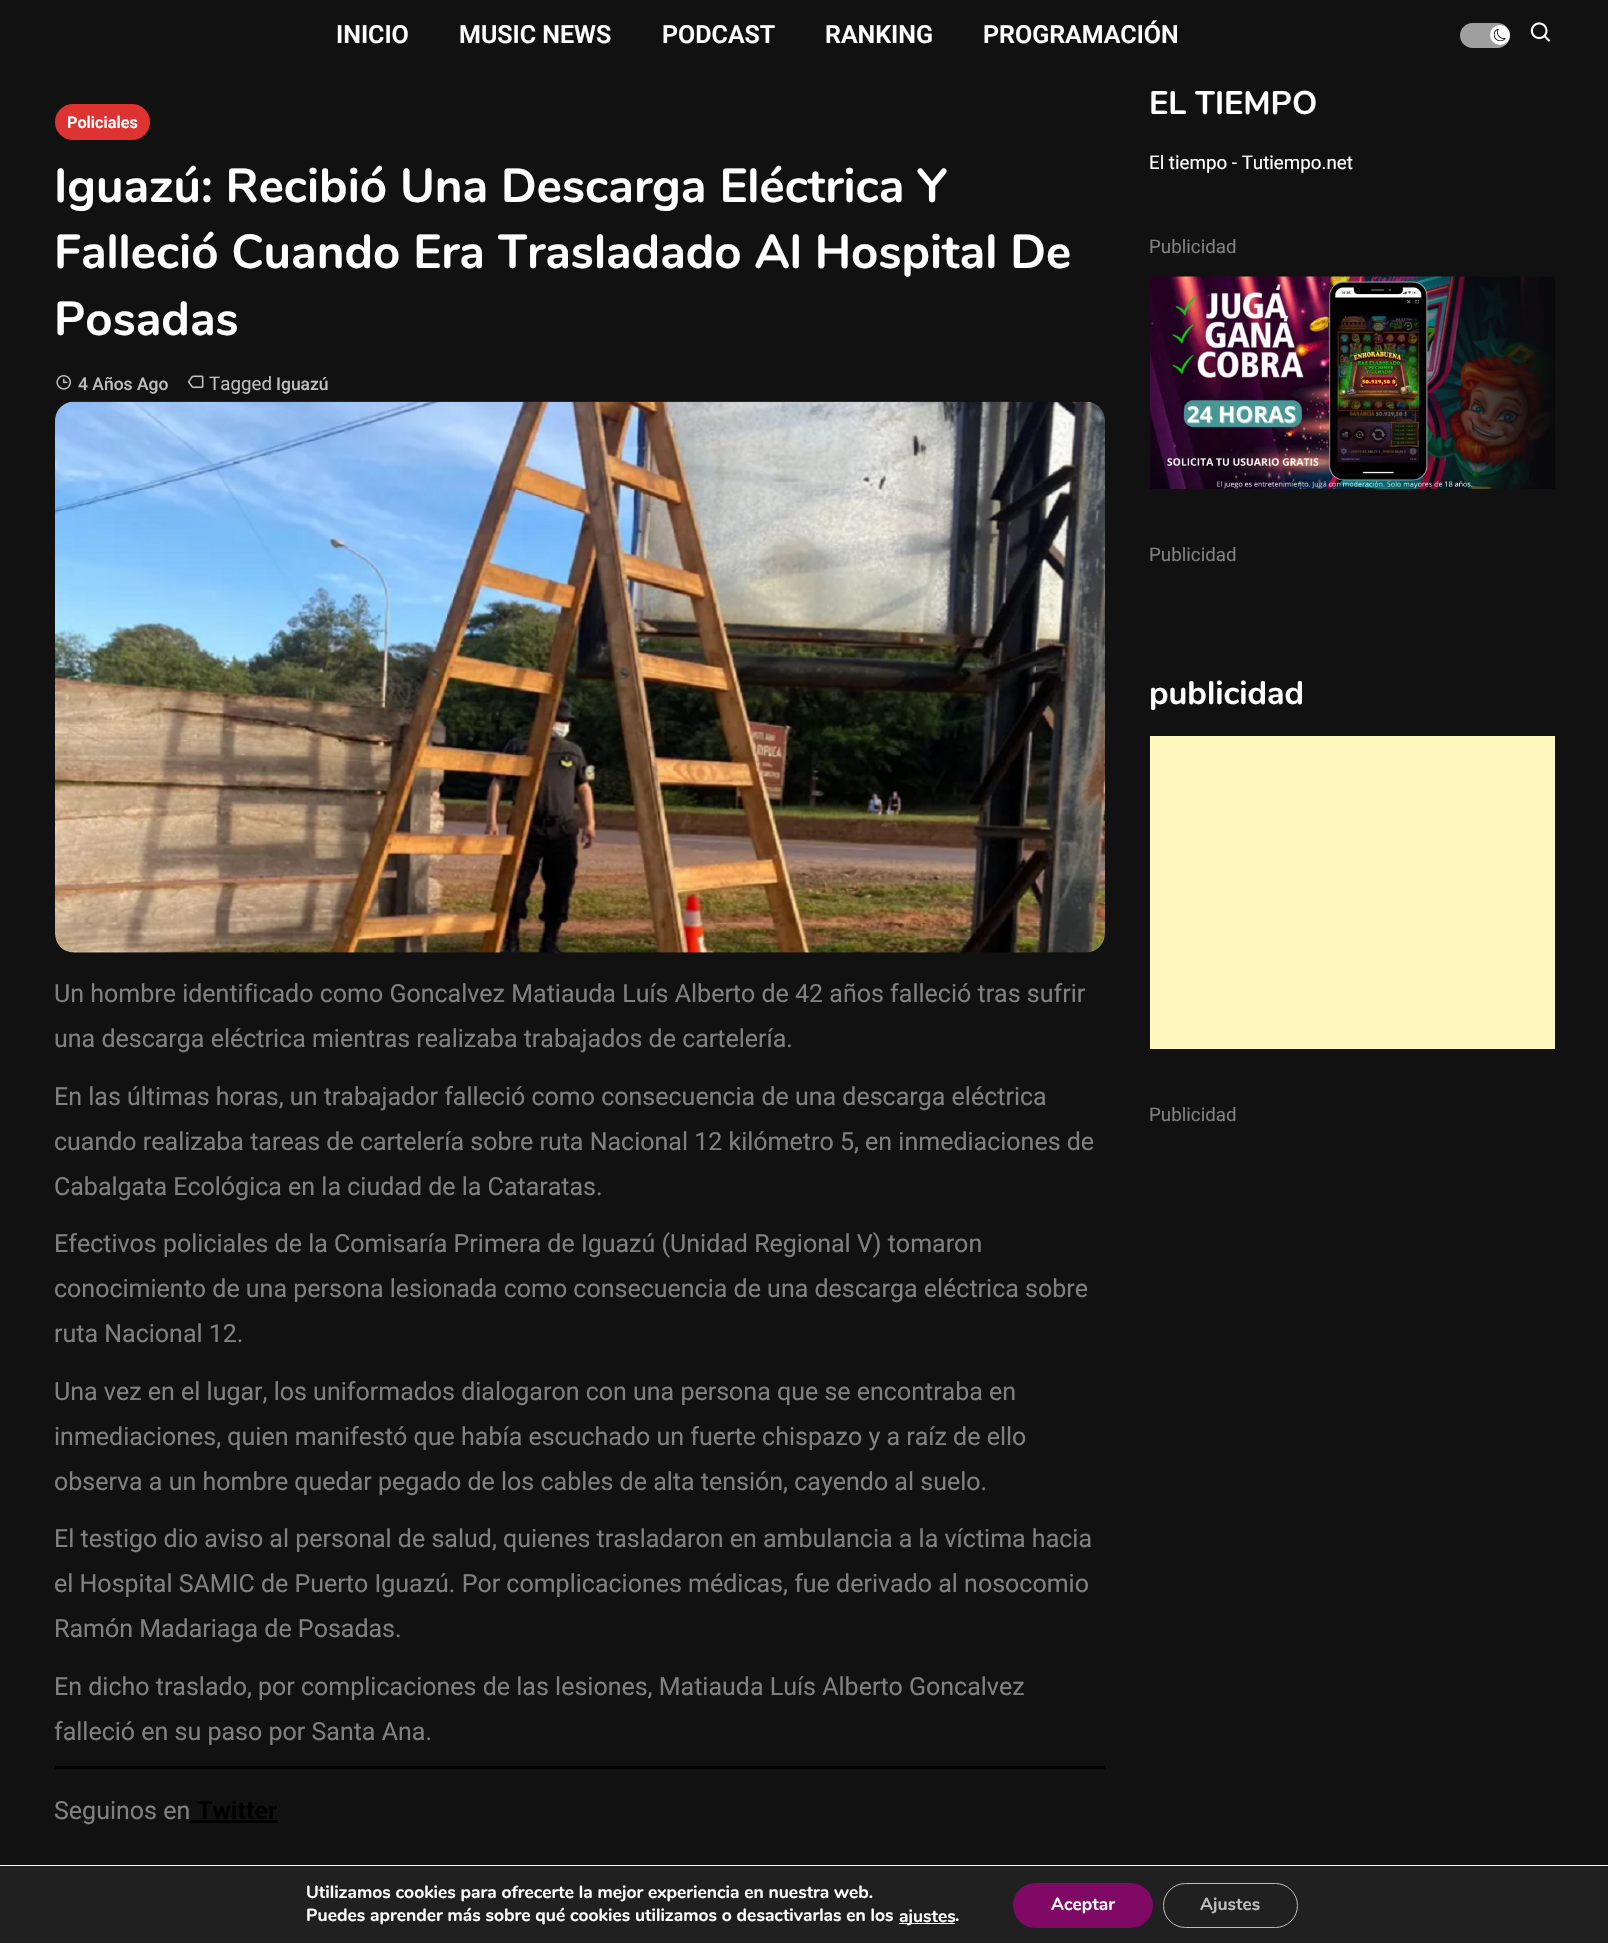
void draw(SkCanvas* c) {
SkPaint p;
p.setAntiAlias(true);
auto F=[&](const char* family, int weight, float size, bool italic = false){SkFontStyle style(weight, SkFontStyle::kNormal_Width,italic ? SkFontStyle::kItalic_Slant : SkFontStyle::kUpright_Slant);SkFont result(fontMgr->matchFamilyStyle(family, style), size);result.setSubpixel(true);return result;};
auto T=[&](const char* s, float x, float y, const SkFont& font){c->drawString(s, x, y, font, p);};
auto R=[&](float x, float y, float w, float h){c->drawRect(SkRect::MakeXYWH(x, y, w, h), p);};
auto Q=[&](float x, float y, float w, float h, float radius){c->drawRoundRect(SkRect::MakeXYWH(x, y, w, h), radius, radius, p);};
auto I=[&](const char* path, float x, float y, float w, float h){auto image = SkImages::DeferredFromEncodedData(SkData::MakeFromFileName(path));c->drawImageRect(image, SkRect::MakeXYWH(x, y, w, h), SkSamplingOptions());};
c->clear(0xff111111);
auto f1 = F("Roboto",600,25);
p.setColor(0xffffffff);
T("INICIO",336,43,f1);
T("MUSIC NEWS",459,43,f1);
T("PODCAST",662,43,f1);
T("RANKING",825,43,f1);
T("PROGRAMACIÓN",983,43,f1);
p.setColor(0xff9f9f9f);
Q(1460,23,50,25,12.5);
p.setColor(0xffffffff);
c->drawCircle(1500,35,10,p);
I("1.png",1494,29,12,12);
I("2.png",1530,22,21,20);
p.setColor(0xffdd3333);
Q(55,104,95,36,18);
auto f2 = F("Roboto",600,16.25);
p.setColor(0xffffffff);
T("Policiales",67,128,f2);
auto f3 = F("Nunito",700,47.5);
T("Iguazú: Recibió Una Descarga Eléctrica Y",54,202,f3);
T("Falleció Cuando Era Trasladado Al Hospital De",54,268,f3);
T("Posadas",54,335,f3);
I("3.png",56,375,15,15);
auto f4 = F("Roboto",500,17.5);
p.setColor(0xffbfbfbf);
T("4 Años Ago",78,390,f4);
I("4.png",187,375,17,14);
auto f5 = F("Roboto",400,18.75);
T("Tagged",209,390,f5);
T("Iguazú",276,390,f4);
I("5.png",55,401,1050,552);
auto f6 = F("Roboto",400,25);
p.setColor(0xff808080);
T("Un hombre identificado como Goncalvez Matiauda Luís Alberto de 42 años falleció tras sufrir",54,1002,f6);
T("una descarga eléctrica mientras realizaba trabajados de cartelería.",54,1047,f6);
T("En las últimas horas, un trabajador falleció como consecuencia de una descarga eléctrica",54,1105,f6);
T("cuando realizaba tareas de cartelería sobre ruta Nacional 12 kilómetro 5, en inmediaciones de",54,1150,f6);
T("Cabalgata Ecológica en la ciudad de la Cataratas.",54,1195,f6);
T("Efectivos policiales de la Comisaría Primera de Iguazú (Unidad Regional V) tomaron",54,1252,f6);
T("conocimiento de una persona lesionada como consecuencia de una descarga eléctrica sobre",54,1297,f6);
T("ruta Nacional 12.",54,1342,f6);
T("Una vez en el lugar, los uniformados dialogaron con una persona que se encontraba en",54,1400,f6);
T("inmediaciones, quien manifestó que había escuchado un fuerte chispazo y a raíz de ello",54,1445,f6);
T("observa a un hombre quedar pegado de los cables de alta tensión, cayendo al suelo.",54,1490,f6);
T("El testigo dio aviso al personal de salud, quienes trasladaron en ambulancia a la víctima hacia",54,1547,f6);
T("el Hospital SAMIC de Puerto Iguazú. Por complicaciones médicas, fue derivado al nosocomio",54,1592,f6);
T("Ramón Madariaga de Posadas.",54,1637,f6);
T("En dicho traslado, por complicaciones de las lesiones, Matiauda Luís Alberto Goncalvez",54,1695,f6);
T("falleció en su paso por Santa Ana.",54,1740,f6);
p.setColor(0xff000000);
R(55,1766,1050,3);
p.setColor(0xff808080);
T("Seguinos en",54,1819,f6);
auto f7 = F("Roboto",700,25);
p.setColor(0xff000000);
T("Twitter",197,1819,f7);
R(190,1820,88,3);
auto f8 = F("Nunito",700,32.5);
p.setColor(0xffffffff);
T("EL TIEMPO",1149,114,f8);
T("El tiempo - Tutiempo.net",1149,169,f5);
p.setColor(0xff808080);
T("Publicidad",1149,253,f5);
I("6.png",1150,276,405,213);
T("Publicidad",1149,561,f5);
p.setColor(0xffffffff);
T("publicidad",1149,704,f8);
p.setColor(0xfffff9c0);
R(1150,736,405,313);
p.setColor(0xff808080);
T("Publicidad",1149,1121,f5);
p.setColor(0xff202020);
R(0,1866,1608,77);
p.setColor(0xffffffff);
R(0,1865,1608,1);
auto f9 = F("Nunito",700,17.5);
T("Utilizamos cookies para ofrecerte la mejor experiencia en nuestra web.",306,1898,f9);
T("Puedes aprender más sobre qué cookies utilizamos o desactivarlas en los",306,1921,f9);
R(899,1923,56,1);
T("ajustes",899,1922,f9);
T(".",955,1921,f9);
p.setColor(0xff7f0964);
Q(1013,1883,140,45,22.5);
p.setColor(0xffffffff);
T("Aceptar",1051,1910,f9);
p.setStroke(true);
p.setStrokeWidth(1);
p.setColor(0xffbcbcbc);
c->drawRoundRect(SkRect::MakeXYWH(1163.5,1883.5,134,44),22,22,p);
p.setStroke(false);
p.setColor(0xffbfbfbf);
T("Ajustes",1200,1910,f9);
}
